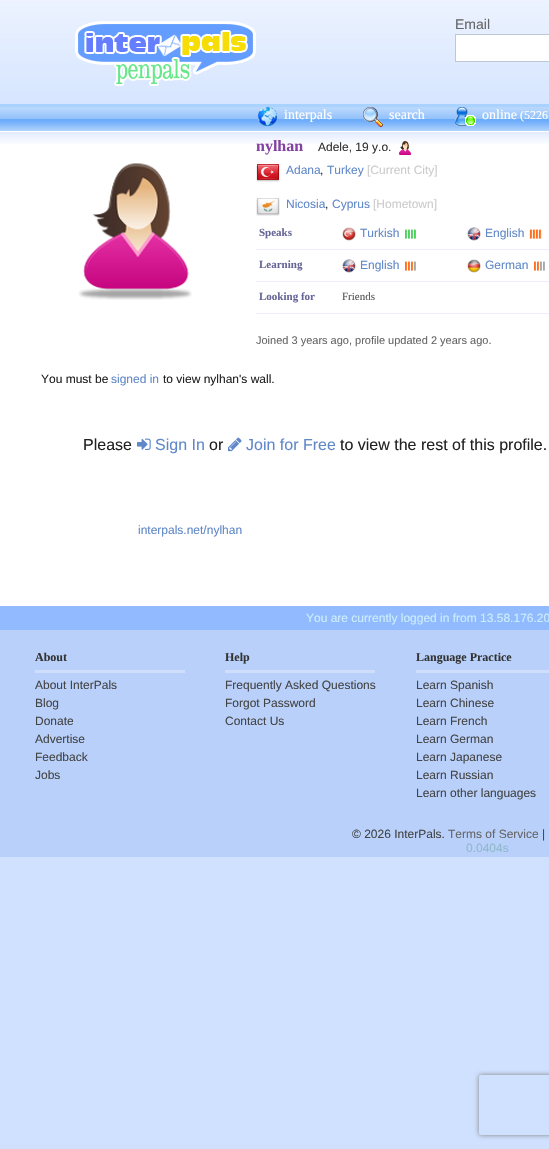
void draw(SkCanvas* c) {
SkPaint p;
p.setAntiAlias(true);
auto F=[&](const char* family, int weight, float size, bool italic = false){SkFontStyle style(weight, SkFontStyle::kNormal_Width,italic ? SkFontStyle::kItalic_Slant : SkFontStyle::kUpright_Slant);SkFont result(fontMgr->matchFamilyStyle(family, style), size);result.setSubpixel(true);return result;};
auto T=[&](const char* s, float x, float y, const SkFont& font){c->drawString(s, x, y, font, p);};
auto R=[&](float x, float y, float w, float h){c->drawRect(SkRect::MakeXYWH(x, y, w, h), p);};
auto I=[&](const char* path, float x, float y, float w, float h){auto image = SkImages::DeferredFromEncodedData(SkData::MakeFromFileName(path));c->drawImageRect(image, SkRect::MakeXYWH(x, y, w, h), SkSamplingOptions());};
auto P=[&](const char* data, bool evenOdd = false){SkPath result = *SkParsePath::FromSVGString(data);if (evenOdd) result.setFillType(SkPathFillType::kEvenOdd);return result;};
c->clear(0xffd0e1ff);
I("1.png",0,0,549,104);
I("2.png",75,21,181,65);
auto f1 = F("Liberation Sans",400,14);
p.setColor(0xff666666);
T("Email",455,29,f1);
p.setColor(0xffffffff);
c->drawRect(SkRect::MakeXYWH(455.5,34.5,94,27),p);
p.setStroke(true);
p.setStrokeWidth(1);
p.setColor(0xffbdc7d8);
c->drawRect(SkRect::MakeXYWH(455.5,34.5,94,27),p);
p.setStroke(false);
p.setColor(0xffa9d2ff);
R(0,104,549,3);
I("3.png",0,107,549,24);
p.setColor(0xffffffff);
R(0,131,549,1);
I("4.png",258,107,19,19);
auto f2 = F("Liberation Serif",400,14);
T("interpals",284,119,f2);
I("5.png",363,107,20,20);
T("search",389,119,f2);
I("6.png",455,107,21,19);
T("online",482,119,f2);
auto f3 = F("Liberation Serif",400,12);
T("(5226",520,119,f3);
R(0,144,549,462);
I("7.png",0,132,549,12);
I("8.png",78,163,114,137);
auto f4 = F("Liberation Serif",700,16);
p.setColor(0xff8442a2);
T("nylhan",256,151,f4);
auto f5 = F("Liberation Sans",400,12);
p.setColor(0xff333333);
T("Adele, 19 y.o.",318,151,f5);
I("9.png",399,141,12,14);
I("10.png",256,164,24,18);
p.setColor(0xff6088c8);
T("Adana",286,174,f5);
p.setColor(0xff333333);
T(",",320,174,f5);
p.setColor(0xff6088c8);
T("Turkey",327,174,f5);
p.setColor(0xffcccccc);
T("[Current City]",367,174,f5);
I("11.png",256,198,24,18);
p.setColor(0xff6088c8);
T("Nicosia",286,208,f5);
p.setColor(0xff333333);
T(",",325,208,f5);
p.setColor(0xff6088c8);
T("Cyprus",332,208,f5);
p.setColor(0xffcccccc);
T("[Hometown]",373,208,f5);
p.setColor(0xffeeeeff);
R(256,249,293,1);
auto f6 = F("Liberation Serif",700,11);
p.setColor(0xff666699);
T("Speaks",259,236,f6);
I("12.png",342,227,14,14);
p.setColor(0xff6088c8);
T("Turkish",360,237,f5);
I("13.png",405,229,11,10);
I("14.png",467,227,14,14);
T("English",485,237,f5);
I("15.png",529,229,13,10);
p.setColor(0xffeeeeff);
R(256,281,293,1);
p.setColor(0xff666699);
T("Learning",259,268,f6);
I("16.png",342,259,14,14);
p.setColor(0xff6088c8);
T("English",360,269,f5);
I("17.png",405,261,11,10);
I("18.png",467,259,14,14);
T("German",485,269,f5);
I("19.png",534,261,11,10);
p.setColor(0xffeeeeff);
R(256,313,293,1);
p.setColor(0xff666699);
T("Looking for",259,300,f6);
auto f7 = F("Liberation Serif",400,11);
p.setColor(0xff555555);
T("Friends",342,300,f7);
auto f8 = F("Liberation Sans",400,11);
p.setColor(0xff666666);
T("Joined 3 years ago, profile updated 2 years ago.",256,344,f8);
p.setColor(0xff222222);
T("You must be",41,383,f5);
p.setColor(0xff6088c8);
T("signed in",111,383,f5);
p.setColor(0xff222222);
T("to view nylhan's wall.",163,383,f5);
auto f9 = F("Liberation Sans",400,16);
T("Please",83,450,f9);
I("20.png",137,438,14,12);
p.setColor(0xff6088c8);
T("Sign In",155,450,f9);
p.setColor(0xff222222);
T("or",209,450,f9);
I("21.png",228,437,14,15);
p.setColor(0xff6088c8);
T("Join for Free",246,450,f9);
p.setColor(0xff222222);
T("to view the rest of this profile.",340,450,f9);
p.setColor(0xff6088c8);
T("interpals.net/nylhan",138,534,f5);
p.setColor(0xff92baff);
R(0,606,549,24);
p.setColor(0xffcbedfc);
T("You are currently logged in from 13.58.176.20",306,622,f5);
p.setColor(0xffb8d0fa);
R(0,630,549,227);
p.setColor(0xffcedefb);
R(35,670,150,3);
auto f10 = F("Liberation Serif",700,12);
p.setColor(0xff333333);
T("About",35,661,f10);
p.setColor(0xff444444);
T("About InterPals",35,689,f5);
T("Blog",35,707,f5);
T("Donate",35,725,f5);
T("Advertise",35,743,f5);
T("Feedback",35,761,f5);
T("Jobs",35,779,f5);
p.setColor(0xffcedefb);
R(225,670,150,3);
p.setColor(0xff333333);
T("Help",225,661,f10);
p.setColor(0xff444444);
T("Frequently Asked Questions",225,689,f5);
T("Forgot Password",225,707,f5);
T("Contact Us",225,725,f5);
p.setColor(0xffcedefb);
R(416,670,133,3);
p.setColor(0xff333333);
T("Language Practice",416,661,f10);
p.setColor(0xff444444);
T("Learn Spanish",416,689,f5);
T("Learn Chinese",416,707,f5);
T("Learn French",416,725,f5);
T("Learn German",416,743,f5);
T("Learn Japanese",416,761,f5);
T("Learn Russian",416,779,f5);
T("Learn other languages",416,797,f5);
T("© 2026 InterPals.",352,838,f5);
p.setColor(0xff666666);
T("Terms of Service",448,838,f5);
p.setColor(0xff444444);
T("|",542,838,f5);
p.setColor(0xff90b9cc);
T("0.0404s",466,852,f5);
c->save();
c->clipPath(P("M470 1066h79v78h-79zm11 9h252c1 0 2 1 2 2v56c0 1-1 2-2 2h-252c-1 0-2-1-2-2v-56c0-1 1-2 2-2z",true),true);
p.setColor(0xff808080);
p.setMaskFilter(SkMaskFilter::MakeBlur(kNormal_SkBlurStyle, 2.5));
c->drawRoundRect(SkRect::MakeXYWH(479,1075,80,60),2,2,p);
p.setMaskFilter(nullptr);
c->restore();
}
